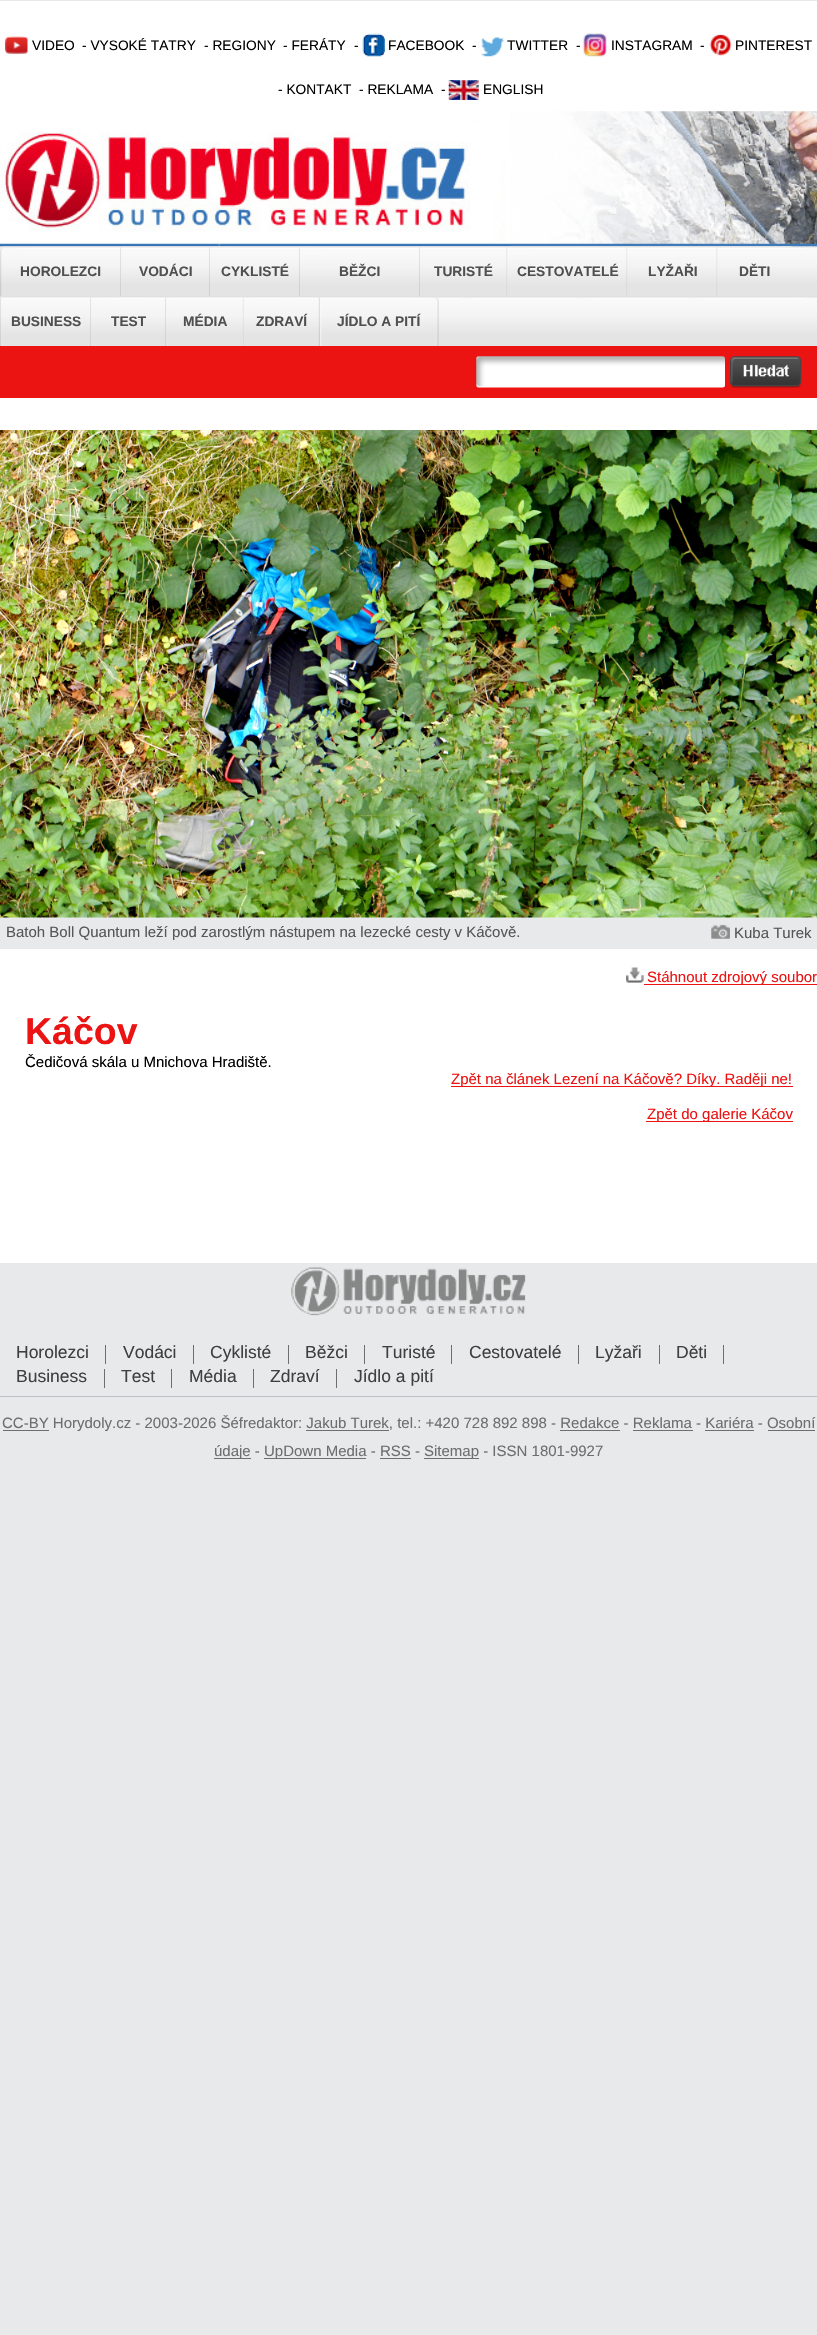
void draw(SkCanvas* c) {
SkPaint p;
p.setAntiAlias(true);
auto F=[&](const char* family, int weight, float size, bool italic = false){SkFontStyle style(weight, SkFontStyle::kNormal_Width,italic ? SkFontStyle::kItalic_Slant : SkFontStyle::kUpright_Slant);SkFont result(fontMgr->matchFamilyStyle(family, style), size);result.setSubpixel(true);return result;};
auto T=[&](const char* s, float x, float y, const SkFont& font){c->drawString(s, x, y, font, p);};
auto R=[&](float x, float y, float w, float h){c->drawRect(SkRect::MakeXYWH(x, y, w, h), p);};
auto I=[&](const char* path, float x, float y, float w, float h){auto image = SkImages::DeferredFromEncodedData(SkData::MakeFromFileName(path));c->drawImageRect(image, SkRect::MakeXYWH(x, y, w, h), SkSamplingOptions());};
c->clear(0xffe7e9ea);
p.setColor(0xffffffff);
R(0,1,817,1262);
I("1.png",5,36,23,18);
auto f1 = F("Liberation Sans",400,13.75);
p.setColor(0xff000000);
T("VIDEO",32,50,f1);
T("- VYSOKÉ TATRY",82,50,f1);
T("- REGIONY",204,50,f1);
T("- FERÁTY",283,50,f1);
T("-",354,50,f1);
I("2.png",362,33,23,24);
T("FACEBOOK",388,50,f1);
T("-",472,50,f1);
I("3.png",481,37,23,20);
T("TWITTER",507,50,f1);
T("-",576,50,f1);
I("4.png",583,33,24,24);
T("INSTAGRAM",611,50,f1);
T("-",700,50,f1);
I("5.png",709,34,23,22);
T("PINTEREST",735,50,f1);
T("- KONTAKT",278,94,f1);
T("- REKLAMA",359,94,f1);
T("-",441,94,f1);
I("6.png",448,80,31,20);
T("ENGLISH",483,94,f1);
I("8.png",0,246,817,100);
I("7.png",0,111,817,136);
I("9.png",0,246,120,51);
auto f2 = F("Liberation Sans",700,13.75);
p.setColor(0xff504f4f);
T("HOROLEZCI",20,276,f2);
I("10.png",120,246,89,51);
I("11.png",121,246,89,50);
T("VODÁCI",139,276,f2);
I("12.png",209,246,90,51);
I("13.png",210,246,90,50);
T("CYKLISTÉ",221,276,f2);
I("14.png",299,246,120,51);
I("15.png",300,246,120,50);
T("BĚŽCI",339,276,f2);
I("16.png",419,246,88,51);
I("17.png",420,246,88,50);
T("TURISTÉ",434,276,f2);
I("18.png",506,246,121,51);
I("19.png",507,246,121,50);
T("CESTOVATELÉ",517,276,f2);
I("20.png",626,246,91,51);
I("21.png",627,246,91,50);
T("LYŽAŘI",648,276,f2);
I("22.png",716,246,76,51);
I("23.png",717,246,76,50);
T("DĚTI",739,276,f2);
I("24.png",0,297,2,49);
I("25.png",1,297,89,49);
T("BUSINESS",11,326,f2);
I("26.png",90,297,2,49);
I("27.png",91,297,74,49);
T("TEST",111,326,f2);
I("28.png",165,296,78,50);
I("29.png",166,297,77,49);
T("MÉDIA",183,326,f2);
I("30.png",242,297,2,49);
I("31.png",243,297,75,49);
T("ZDRAVÍ",256,326,f2);
I("32.png",318,296,121,50);
T("JÍDLO A PITÍ",337,326,f2);
p.setColor(0xffec1313);
R(0,346,817,52);
I("33.png",476,356,249,32);
I("34.png",730,356,72,32);
p.setColor(0xffe8e9eb);
R(0,917,817,32);
I("35.png",0,430,817,488);
auto f3 = F("Liberation Sans",400,15);
p.setColor(0xff555658);
T("Batoh Boll Quantum leží pod zarostlým nástupem na lezecké cesty v Káčově.",6,937,f3);
I("36.png",711,924,19,15);
T("Kuba Turek",734,938,f3);
I("37.png",626,967,18,16);
p.setColor(0xffec1313);
R(644,984,173,1);
T("Stáhnout zdrojový soubor",647,982,f3);
auto f4 = F("Liberation Sans",700,37.5);
T("Káčov",25,1044,f4);
p.setColor(0xff000000);
T("Čedičová skála u Mnichova Hradiště.",25,1067,f3);
p.setColor(0xffec1313);
R(451,1086,342,1);
T("Zpět na článek Lezení na Káčově? Díky. Raději ne!",451,1084,f3);
R(646,1121,147,1);
T("Zpět do galerie Káčov",647,1119,f3);
I("38.png",291,1267,235,49);
p.setColor(0xff6e6e6e);
R(105,1345,1,19);
auto f5 = F("Liberation Sans",400,17.5);
p.setColor(0xff3f3f3f);
T("Horolezci",16,1358,f5);
p.setColor(0xff6e6e6e);
R(193,1345,1,19);
p.setColor(0xff3f3f3f);
T("Vodáci",123,1358,f5);
p.setColor(0xff6e6e6e);
R(288,1345,1,19);
p.setColor(0xff3f3f3f);
T("Cyklisté",210,1358,f5);
p.setColor(0xff6e6e6e);
R(364,1345,1,19);
p.setColor(0xff3f3f3f);
T("Běžci",305,1358,f5);
p.setColor(0xff6e6e6e);
R(451,1345,1,19);
p.setColor(0xff3f3f3f);
T("Turisté",382,1358,f5);
p.setColor(0xff6e6e6e);
R(578,1345,1,19);
p.setColor(0xff3f3f3f);
T("Cestovatelé",469,1358,f5);
p.setColor(0xff6e6e6e);
R(659,1345,1,19);
p.setColor(0xff3f3f3f);
T("Lyžaři",595,1358,f5);
p.setColor(0xff6e6e6e);
R(723,1345,1,19);
p.setColor(0xff3f3f3f);
T("Děti",676,1358,f5);
p.setColor(0xff6e6e6e);
R(104,1369,1,19);
p.setColor(0xff3f3f3f);
T("Business",16,1382,f5);
p.setColor(0xff6e6e6e);
R(171,1369,1,19);
p.setColor(0xff3f3f3f);
T("Test",121,1382,f5);
p.setColor(0xff6e6e6e);
R(253,1369,1,19);
p.setColor(0xff3f3f3f);
T("Média",189,1382,f5);
p.setColor(0xff6e6e6e);
R(336,1369,1,19);
p.setColor(0xff3f3f3f);
T("Zdraví",270,1382,f5);
T("Jídlo a pití",354,1382,f5);
p.setColor(0xffbdc0c2);
R(0,1396,817,1);
p.setColor(0xff6e6e6e);
R(3,1430,46,1);
T("CC-BY Horydoly.cz - 2003-2026 Šéfredaktor: Jakub Turek, tel.: +420 728 892 898 - Redakce - Reklama - Kariéra - Osobní",2,1428,f3);
R(306,1430,83,1);
R(560,1430,60,1);
R(633,1430,60,1);
R(705,1430,49,1);
R(214,1458,37,1);
T("údaje -",214,1456,f3);
R(768,1430,47,1);
R(264,1458,102,1);
T("UpDown Media - RSS -",264,1456,f3);
R(424,1458,55,1);
T("Sitemap - ISSN 1801-9927",424,1456,f3);
R(380,1458,31,1);
}
